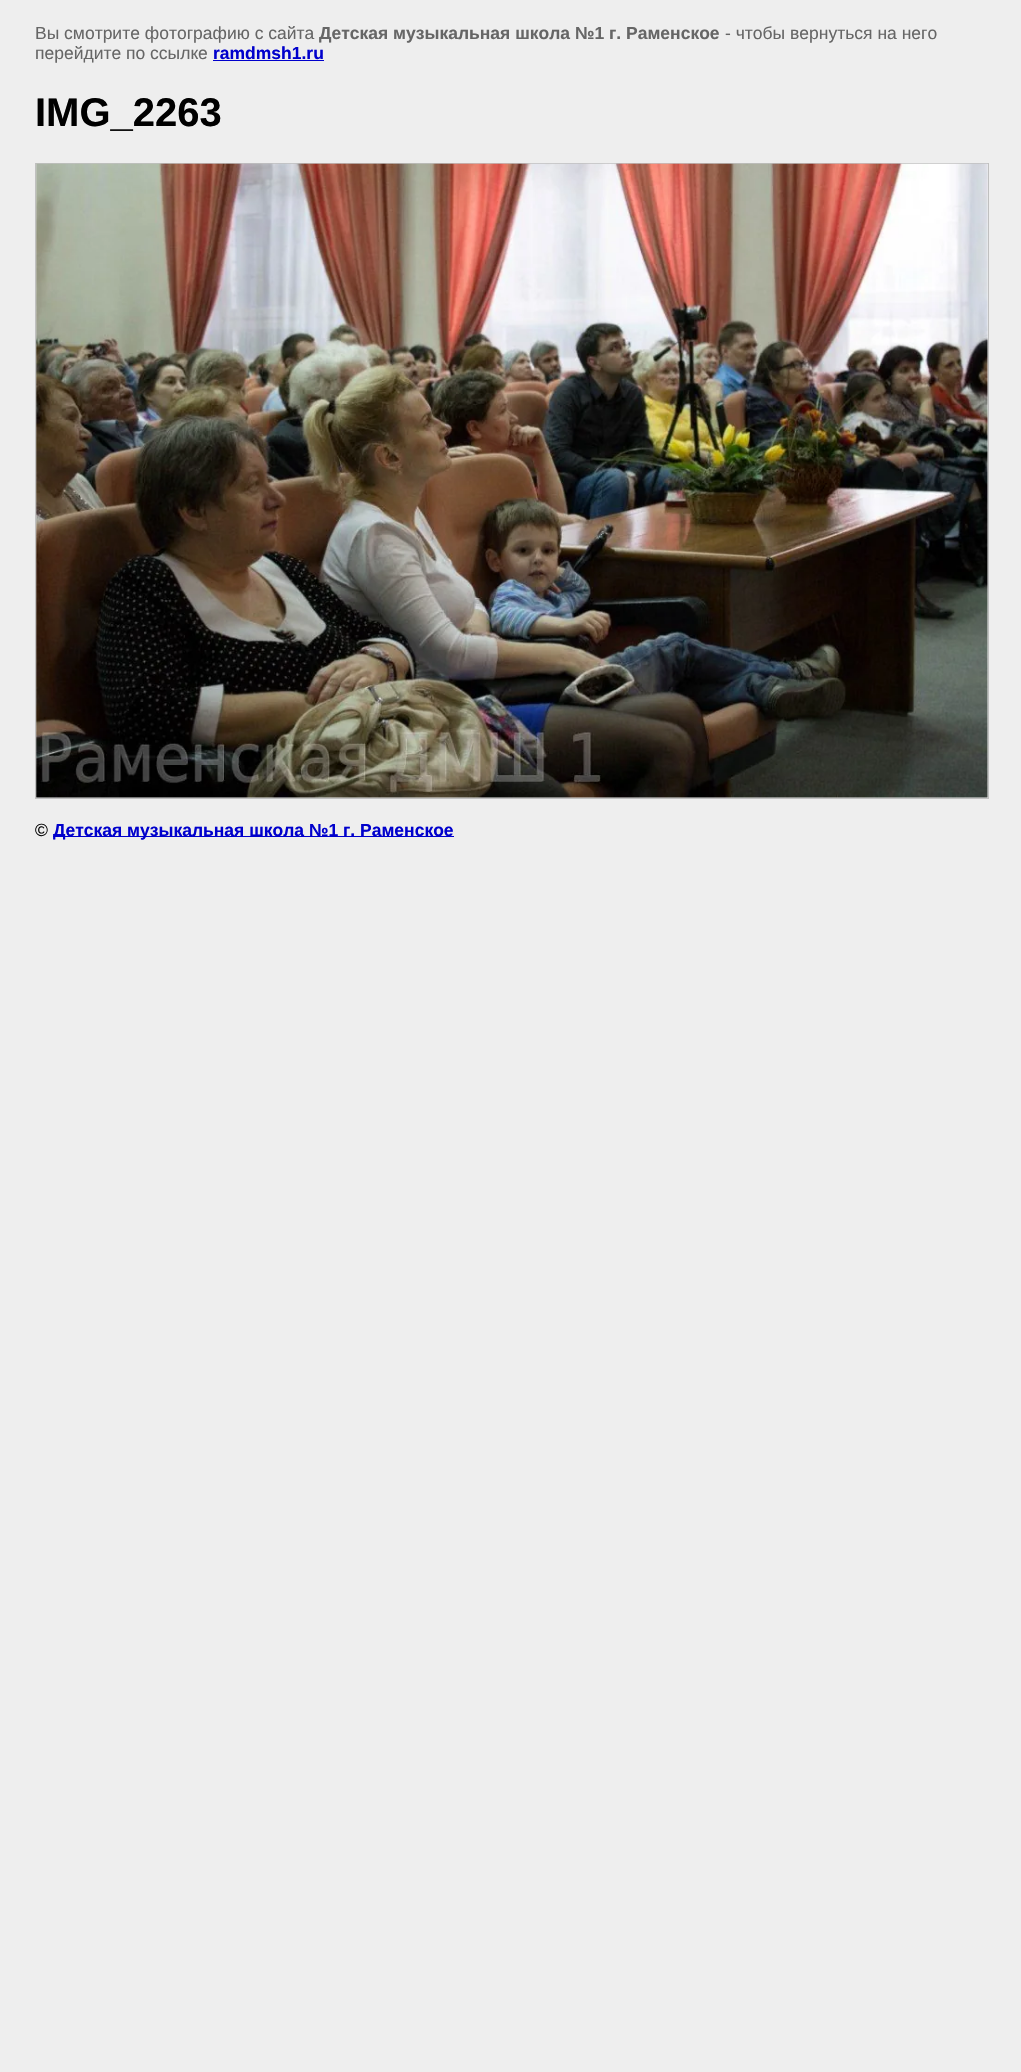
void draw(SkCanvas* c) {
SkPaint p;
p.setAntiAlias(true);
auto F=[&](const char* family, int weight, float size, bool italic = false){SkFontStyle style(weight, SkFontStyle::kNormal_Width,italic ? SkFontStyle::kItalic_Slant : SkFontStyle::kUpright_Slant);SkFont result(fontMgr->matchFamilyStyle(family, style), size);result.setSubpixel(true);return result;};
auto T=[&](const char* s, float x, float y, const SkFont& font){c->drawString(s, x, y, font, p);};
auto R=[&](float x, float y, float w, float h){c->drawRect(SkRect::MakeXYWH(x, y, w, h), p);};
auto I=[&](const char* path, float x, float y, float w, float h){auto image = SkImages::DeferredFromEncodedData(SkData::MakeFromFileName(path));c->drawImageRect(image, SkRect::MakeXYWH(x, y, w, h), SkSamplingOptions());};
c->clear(0xffeeeeee);
auto f1 = F("Liberation Sans",400,17.5);
p.setColor(0xff666666);
T("Вы смотрите фотографию с сайта",35,39,f1);
auto f2 = F("Liberation Sans",700,17.5);
T("Детская музыкальная школа №1 г. Раменское",319,39,f2);
T("- чтобы вернуться на него",725,39,f1);
T("перейдите по ссылке",35,59,f1);
p.setColor(0xff0000cc);
T("ramdmsh1.ru",213,59,f2);
R(213,60,111,1);
auto f3 = F("Liberation Sans",700,40);
p.setColor(0xff000000);
T("IMG_2263",35,126,f3);
p.setStroke(true);
p.setStrokeWidth(1);
p.setColor(0xffc0c0c0);
c->drawRect(SkRect::MakeXYWH(35.5,163.5,953,635),p);
I("1.png",36,163,952,635);
p.setStroke(false);
p.setColor(0xff000000);
T("©",35,836,f1);
p.setColor(0xff0000cc);
R(53,836,401,1);
T("Детская музыкальная школа №1 г. Раменское",53,836,f2);
}
